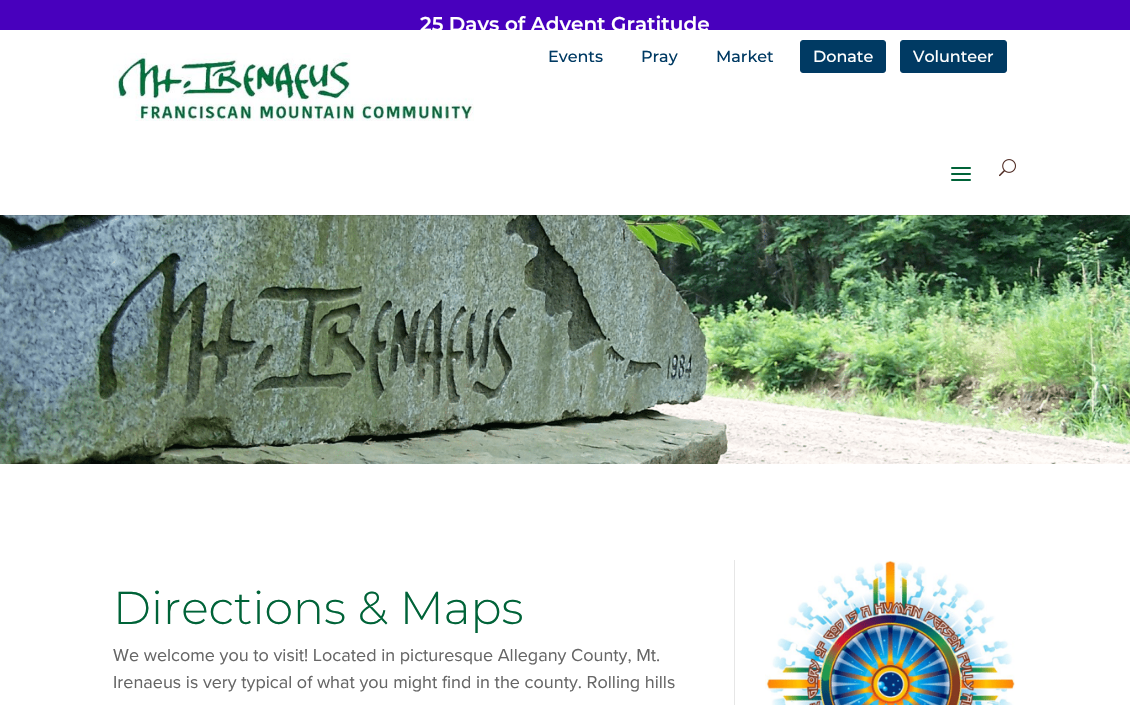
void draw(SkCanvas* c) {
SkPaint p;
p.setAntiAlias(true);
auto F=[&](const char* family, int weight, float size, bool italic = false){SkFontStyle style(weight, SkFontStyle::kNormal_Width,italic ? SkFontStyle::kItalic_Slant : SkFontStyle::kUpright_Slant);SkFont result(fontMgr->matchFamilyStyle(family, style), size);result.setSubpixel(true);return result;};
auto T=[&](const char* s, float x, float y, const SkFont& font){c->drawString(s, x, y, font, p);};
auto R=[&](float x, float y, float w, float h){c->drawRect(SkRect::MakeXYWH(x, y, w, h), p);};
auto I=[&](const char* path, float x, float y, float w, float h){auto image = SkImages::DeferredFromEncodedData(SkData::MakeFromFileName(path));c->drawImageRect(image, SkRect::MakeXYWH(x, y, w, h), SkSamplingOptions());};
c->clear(0xffffffff);
p.setColor(0xff4800bd);
R(0,0,1130,30);
auto f1 = F("Montserrat",600,20);
p.setColor(0xffffffff);
T("25 Days of Advent Gratitude",420,31,f1);
I("4.png",0,215,1130,249);
p.setColor(0x1a000000);
R(0,215,1130,1);
I("1.png",113,53,361,68);
auto f2 = F("Montserrat",500,16);
p.setColor(0xff003a63);
T("Events",548,62,f2);
T("Pray",641,62,f2);
T("Market",716,62,f2);
c->drawRoundRect(SkRect::MakeXYWH(800.5,40.5,85,32),2.5,2.5,p);
p.setStroke(true);
p.setStrokeWidth(1);
c->drawRoundRect(SkRect::MakeXYWH(800.5,40.5,85,32),2.5,2.5,p);
p.setStroke(false);
p.setColor(0xffffffff);
T("Donate",813,62,f2);
p.setColor(0xff003a63);
c->drawRoundRect(SkRect::MakeXYWH(900.5,40.5,106,32),2.5,2.5,p);
p.setStroke(true);
c->drawRoundRect(SkRect::MakeXYWH(900.5,40.5,106,32),2.5,2.5,p);
p.setStroke(false);
p.setColor(0xffffffff);
T("Volunteer",913,62,f2);
I("2.png",951,167,20,14);
I("3.png",999,159,17,18);
auto f3 = F("Montserrat",300,46);
p.setColor(0xff006338);
T("Directions & Maps",113,624,f3);
auto f4 = F("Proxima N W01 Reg",400,18);
p.setColor(0xff666666);
T("We welcome you to visit! Located in picturesque Allegany County, Mt.",113,661,f4);
T("Irenaeus is very typical of what you might find in the county. Rolling hills",113,688,f4);
p.setColor(0xffe6e6e6);
R(734,560,1,145);
I("5.png",765,560,250,145);
}
